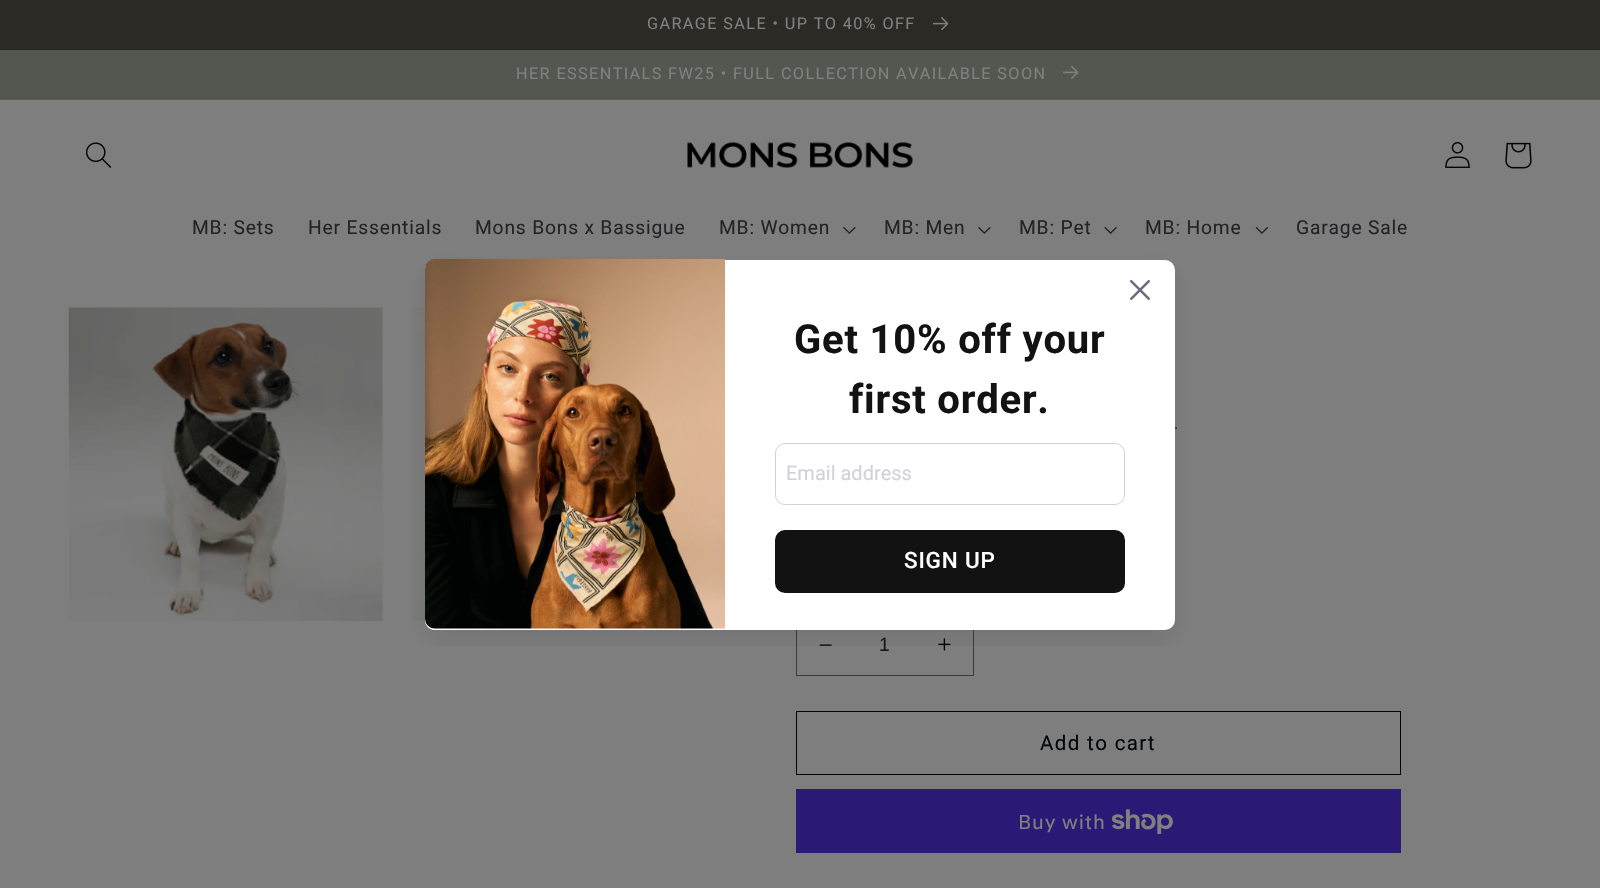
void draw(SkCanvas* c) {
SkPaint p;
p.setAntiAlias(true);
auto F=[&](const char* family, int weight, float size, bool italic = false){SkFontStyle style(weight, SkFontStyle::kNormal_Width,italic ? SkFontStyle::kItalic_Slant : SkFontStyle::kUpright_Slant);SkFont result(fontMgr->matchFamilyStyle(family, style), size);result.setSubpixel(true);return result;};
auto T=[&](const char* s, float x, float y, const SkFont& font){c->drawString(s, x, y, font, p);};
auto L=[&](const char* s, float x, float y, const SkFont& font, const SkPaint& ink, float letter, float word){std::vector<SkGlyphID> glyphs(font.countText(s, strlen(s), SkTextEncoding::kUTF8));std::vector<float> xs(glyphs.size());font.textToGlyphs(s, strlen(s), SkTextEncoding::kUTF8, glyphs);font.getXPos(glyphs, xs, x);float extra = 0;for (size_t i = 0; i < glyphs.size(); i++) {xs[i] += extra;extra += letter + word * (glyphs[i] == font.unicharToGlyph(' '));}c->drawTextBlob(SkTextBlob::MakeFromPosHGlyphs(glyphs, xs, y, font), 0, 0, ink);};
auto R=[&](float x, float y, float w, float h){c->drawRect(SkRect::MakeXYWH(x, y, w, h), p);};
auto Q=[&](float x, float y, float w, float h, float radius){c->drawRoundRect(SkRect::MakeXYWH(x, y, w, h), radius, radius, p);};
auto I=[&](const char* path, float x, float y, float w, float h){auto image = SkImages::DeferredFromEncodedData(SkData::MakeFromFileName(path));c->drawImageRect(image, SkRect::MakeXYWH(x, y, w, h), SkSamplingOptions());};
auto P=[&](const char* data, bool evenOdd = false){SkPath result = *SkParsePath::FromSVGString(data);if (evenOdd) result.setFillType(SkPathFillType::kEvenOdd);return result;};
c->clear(0xff7e7e7e);
p.setColor(0xff2b2a25);
R(0,0,1600,49);
p.setColor(0xff282723);
R(0,49,1600,1);
auto f1 = F("Roboto",400,16.25);
p.setColor(0xff808080);
L("GARAGE SALE • UP TO 40% OFF",647,29,f1,p,1.38,0);
I("1.png",933,17,16,13);
p.setColor(0xff53574f);
R(0,50,1600,49);
p.setColor(0xff575a53);
R(0,99,1600,1);
p.setColor(0xff808080);
L("HER ESSENTIALS FW25 • FULL COLLECTION AVAILABLE SOON",516,79,f1,p,1.38,0);
I("2.png",1063,65,16,14);
I("3.png",86,142,26,26);
I("4.png",687,142,226,26);
I("5.png",1445,142,25,26);
I("6.png",1505,142,27,27);
auto f2 = F("Roboto",400,19.25);
p.setColor(0xff212327);
L("MB: Sets",192,234,f2,p,.8,0);
L("Her Essentials",308,234,f2,p,.8,0);
L("Mons Bons x Bassigue",475,234,f2,p,.8,0);
L("MB: Women",719,234,f2,p,.8,0);
I("7.png",843,227,13,7);
L("MB: Men",884,234,f2,p,.8,0);
I("7.png",978,227,13,7);
L("MB: Pet",1019,234,f2,p,.8,0);
I("8.png",1104,227,13,7);
L("MB: Home",1145,234,f2,p,.8,0);
I("9.png",1255,227,13,7);
L("Garage Sale",1296,234,f2,p,.8,0);
I("13.png",412,307,14,314);
I("14.png",819,644,13,2);
I("15.png",938,638,13,13);
p.setStroke(true);
p.setStrokeWidth(1);
p.setColor(0xff393b3e);
c->drawRect(SkRect::MakeXYWH(796.5,613.5,177,62),p);
c->save();
c->clipRect(SkRect::MakeXYWH(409,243,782,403));
p.setStroke(false);
p.setColor(0x1a121127);
p.setMaskFilter(SkMaskFilter::MakeBlur(kNormal_SkBlurStyle, 12.5));
c->drawRoundRect(SkRect::MakeXYWH(425,270,750,370),10,10,p);
p.setMaskFilter(nullptr);
c->restore();
p.setColor(0xffffffff);
Q(425,260,750,370,10);
c->drawPath(P("M435 260h290v370h-290c-5.5 0-10-4.5-10-10v-350c0-5.5 4.5-10 10-10z"),p);
I("10.png",425,258,300,371);
I("11.png",1130,280,20,20);
auto f3 = F("Roboto",700,40);
p.setColor(0xff121212);
L("Get 10% off your",794,353,f3,p,.8,0);
L("first order.",849,413,f3,p,.8,0);
p.setStroke(true);
p.setColor(0xffd1d1db);
c->drawRoundRect(SkRect::MakeXYWH(775.5,443.5,349,61),9.5,9.5,p);
auto f4 = F("Roboto",400,20);
p.setStroke(false);
T("Email address",786,480,f4);
p.setColor(0xff121212);
Q(775,530,350,63,10);
auto f5 = F("Roboto",500,22.5);
p.setColor(0xffffffff);
L("SIGN UP",904,568,f5,p,.8,0);
I("12.png",68,307,315,315);
auto f6 = F("Roboto",400,16);
p.setColor(0xff212327);
L(".",1174,429,f6,p,1,0);
auto f7 = F("Liberation Sans",400,19.25);
p.setColor(0xff14171b);
T("1",879,651,f7);
p.setStroke(true);
p.setColor(0xff010509);
c->drawRect(SkRect::MakeXYWH(796.5,711.5,604,63),p);
auto f8 = F("Roboto",400,20.5);
p.setStroke(false);
L("Add to cart",1040,750,f8,p,1.38,0);
p.setColor(0xff2a1a76);
R(796,789,605,64);
auto f9 = F("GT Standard",400,20);
p.setColor(0xff808080);
L("Buy with",1018,829,f9,p,.8,0);
I("16.png",1111,809,62,25);
}
